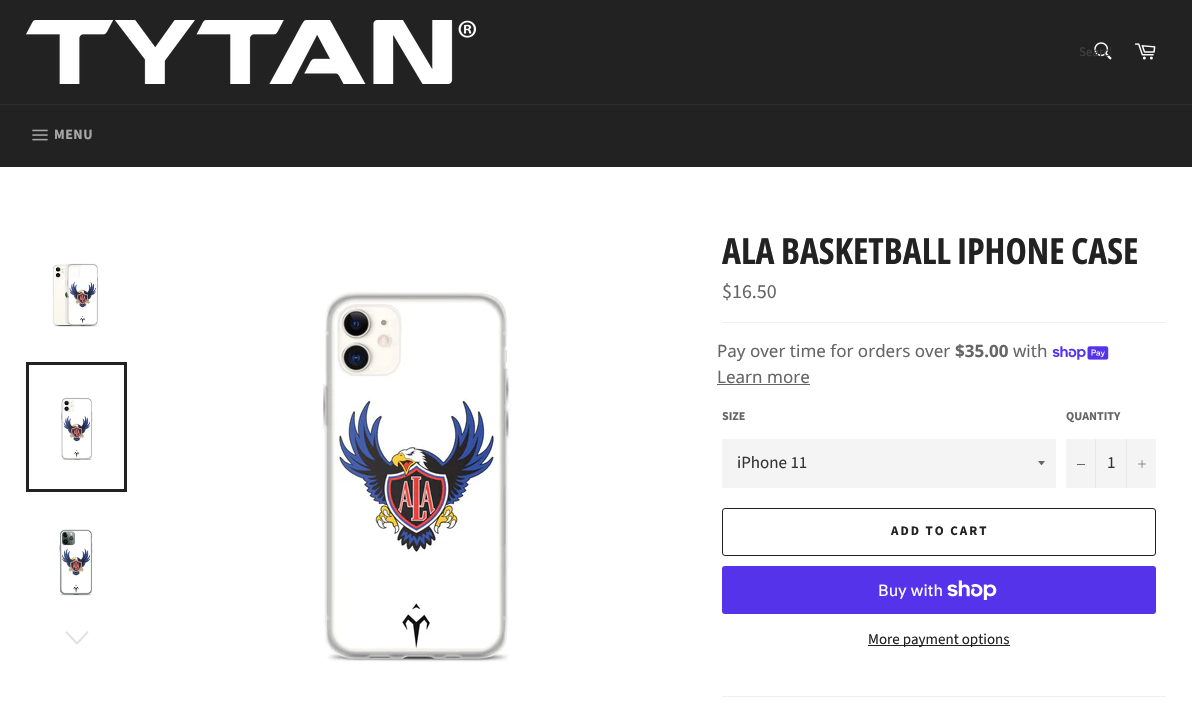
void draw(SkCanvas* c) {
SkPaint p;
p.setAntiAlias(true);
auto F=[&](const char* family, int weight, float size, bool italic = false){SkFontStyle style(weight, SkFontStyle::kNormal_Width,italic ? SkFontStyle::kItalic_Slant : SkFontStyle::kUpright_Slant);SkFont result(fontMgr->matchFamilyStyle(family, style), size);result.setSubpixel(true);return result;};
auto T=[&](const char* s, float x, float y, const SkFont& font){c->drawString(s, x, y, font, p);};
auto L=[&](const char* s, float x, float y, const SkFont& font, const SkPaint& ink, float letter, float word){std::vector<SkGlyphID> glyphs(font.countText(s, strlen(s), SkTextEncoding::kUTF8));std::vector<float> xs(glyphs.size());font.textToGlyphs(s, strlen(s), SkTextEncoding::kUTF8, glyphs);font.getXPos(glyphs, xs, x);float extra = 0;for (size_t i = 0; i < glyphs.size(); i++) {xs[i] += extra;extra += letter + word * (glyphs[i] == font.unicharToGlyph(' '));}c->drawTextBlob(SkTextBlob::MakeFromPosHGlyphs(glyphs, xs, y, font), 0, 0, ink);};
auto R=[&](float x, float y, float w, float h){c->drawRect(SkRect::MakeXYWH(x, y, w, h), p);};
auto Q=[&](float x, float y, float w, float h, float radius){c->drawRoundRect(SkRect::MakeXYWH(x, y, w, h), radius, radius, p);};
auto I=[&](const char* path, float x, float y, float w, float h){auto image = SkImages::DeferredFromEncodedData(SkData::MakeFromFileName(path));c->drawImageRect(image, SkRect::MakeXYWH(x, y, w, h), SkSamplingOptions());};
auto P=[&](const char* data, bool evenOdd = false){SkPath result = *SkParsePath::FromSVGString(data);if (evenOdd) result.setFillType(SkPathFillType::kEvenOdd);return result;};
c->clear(0xff222222);
I("1.png",26,20,450,64);
I("2.png",1094,42,18,18);
c->save();
c->clipRect(SkRect::MakeXYWH(1079,43,32,18));
auto f1 = F("Source Sans Pro",400,13);
p.setColor(0xff404040);
T("Search",1079,56,f1);
c->restore();
I("3.png",1134,43,22,17);
p.setColor(0xff2f2f2f);
R(0,104,1192,1);
I("4.png",32,129,16,12);
auto f2 = F("Source Sans Pro",700,14);
p.setColor(0xffa7a7a7);
L("MENU",54,139,f2,p,.5,0);
p.setColor(0xffffffff);
R(0,167,1192,545);
I("5.png",52,263,47,64);
I("6.png",61,397,32,63);
p.setStroke(true);
p.setStrokeWidth(3);
p.setColor(0xff222222);
c->drawRect(SkRect::MakeXYWH(27.5,363.5,98,127),p);
I("7.png",59,529,34,67);
p.setStroke(false);
p.setColor(0xffe0e0e0);
c->drawPath(P("M87.5 631l1 1.5l-11.5 12.5l-11.5-12.5l1-1.5l10.5 11z"),p);
I("8.png",322,291,189,371);
auto f3 = F("Open Sans Condensed",700,36);
p.setColor(0xff222222);
T("ALA BASKETBALL IPHONE CASE",722,264,f3);
auto f4 = F("Source Sans Pro",400,20);
p.setColor(0xff666666);
T("$16.50",722,298,f4);
p.setColor(0xfff0f0f0);
R(722,322,444,1);
auto f5 = F("Noto Sans",400,17);
p.setColor(0xff666666);
T("Pay over time for orders over",717,357,f5);
auto f6 = F("Noto Sans",700,17);
T("$35.00",955,357,f6);
T("with",1013,357,f5);
I("9.png",1052,346,57,14);
T("Learn more",717,383,f5);
R(717,384,93,1);
auto f7 = F("Source Sans Pro",700,12);
T("SIZE",722,420,f7);
p.setColor(0xfff4f4f4);
R(722,439,334,49);
p.setColor(0xff666666);
c->drawPath(P("M1038 461c4.5 5.5 2.5 5.5 7 0z"),p);
auto f8 = F("Source Sans Pro",400,17);
p.setColor(0xff333333);
T("iPhone 11",737,468,f8);
p.setColor(0xff666666);
T("QUANTITY",1066,420,f7);
p.setColor(0xfff4f4f4);
R(1066,439,90,49);
p.setColor(0xffe7e7e7);
R(1095,439,1,49);
p.setColor(0xff666666);
R(1077,464,8,1);
p.setColor(0xff333333);
T("1",1107,468,f8);
p.setColor(0xffe7e7e7);
R(1126,439,1,49);
I("10.png",1138,460,8,8);
p.setStroke(true);
p.setStrokeWidth(1);
p.setColor(0xff222222);
c->drawRoundRect(SkRect::MakeXYWH(722.5,508.5,433,47),2.5,2.5,p);
auto f9 = F("Source Sans Pro",700,13);
p.setStroke(false);
L("ADD TO CART",891,535,f9,p,2,0);
p.setColor(0xff5433eb);
Q(722,566,434,48,3);
auto f10 = F("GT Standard",400,16);
p.setColor(0xffffffff);
T("Buy with",878,596,f10);
I("11.png",947,580,50,20);
p.setColor(0xff222222);
R(868,645,142,1);
auto f11 = F("Source Sans Pro",400,15);
T("More payment options",868,644,f11);
p.setColor(0xfff0f0f0);
R(722,696,444,1);
}
